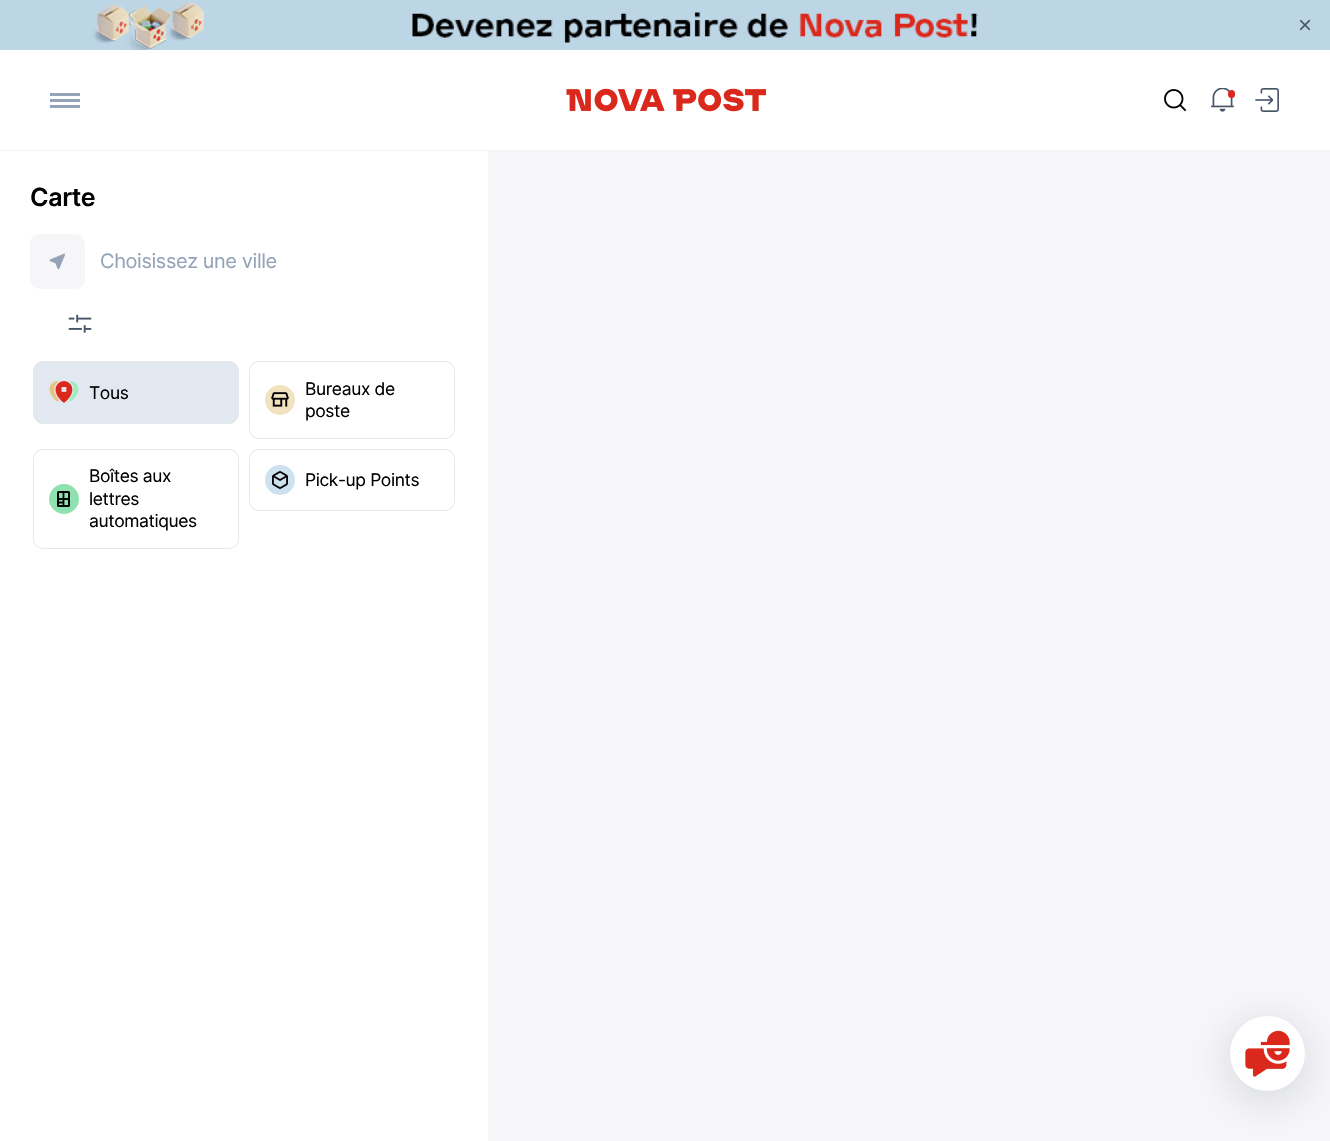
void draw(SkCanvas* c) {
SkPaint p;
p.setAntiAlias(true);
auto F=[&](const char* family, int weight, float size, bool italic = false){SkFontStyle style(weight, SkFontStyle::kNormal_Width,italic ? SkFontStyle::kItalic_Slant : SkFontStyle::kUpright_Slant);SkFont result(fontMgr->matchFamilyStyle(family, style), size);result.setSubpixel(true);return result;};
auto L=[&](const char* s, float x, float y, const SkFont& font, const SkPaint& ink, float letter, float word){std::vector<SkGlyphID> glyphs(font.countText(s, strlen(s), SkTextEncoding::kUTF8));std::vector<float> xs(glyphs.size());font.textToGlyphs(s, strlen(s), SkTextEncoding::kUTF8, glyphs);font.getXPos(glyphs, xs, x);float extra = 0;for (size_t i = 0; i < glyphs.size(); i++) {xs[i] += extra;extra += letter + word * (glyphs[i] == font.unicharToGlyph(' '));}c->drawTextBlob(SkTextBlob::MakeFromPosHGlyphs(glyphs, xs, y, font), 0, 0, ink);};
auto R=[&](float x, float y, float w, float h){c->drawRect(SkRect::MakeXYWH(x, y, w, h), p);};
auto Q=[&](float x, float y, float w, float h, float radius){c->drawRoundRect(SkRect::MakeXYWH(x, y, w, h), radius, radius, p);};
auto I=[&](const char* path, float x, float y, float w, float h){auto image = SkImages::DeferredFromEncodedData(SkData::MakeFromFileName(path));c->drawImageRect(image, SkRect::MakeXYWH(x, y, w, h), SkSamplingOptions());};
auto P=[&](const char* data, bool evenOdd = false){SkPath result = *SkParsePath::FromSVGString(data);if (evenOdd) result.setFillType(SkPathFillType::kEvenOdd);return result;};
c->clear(0xfff6f6f9);
p.setColor(0xffffffff);
R(0,50,1330,100);
p.setColor(0xffbdd6e6);
R(0,0,1330,50);
I("1.png",92,1,886,49);
I("2.png",1299,19,12,12);
p.setColor(0xff94a3b8);
R(50,93,30,3);
R(50,99,30,3);
R(50,105,30,3);
I("3.png",566,88,201,24);
I("4.png",1164,89,23,23);
I("5.png",1211,88,23,24);
p.setColor(0xffda291c);
Q(1228,90,7,8,3.5);
I("6.png",1255,88,24,24);
p.setColor(0xffffffff);
R(0,151,488,990);
p.setColor(0xfff2f2f5);
R(0,150,488,1);
auto f1 = F("Inter",600,25);
p.setColor(0xff000000);
L("Carte",30,206,f1,p,-.4,0);
p.setColor(0xfff6f6f9);
Q(30,234,55,55,10);
I("7.png",49,253,17,17);
auto f2 = F("Inter",400,20);
p.setColor(0xff94a3b8);
L("Choisissez une ville",100,268,f2,p,-.4,0);
I("8.png",68,314,24,19);
p.setColor(0xffe2e8f0);
c->drawRoundRect(SkRect::MakeXYWH(33.5,361.5,205,62),9.5,9.5,p);
p.setStroke(true);
p.setStrokeWidth(1);
p.setColor(0xffe5e7eb);
c->drawRoundRect(SkRect::MakeXYWH(33.5,361.5,205,62),9.5,9.5,p);
I("9.png",49,381,30,22);
auto f3 = F("Inter",400,17.5);
p.setStroke(false);
p.setColor(0xff000000);
L("Tous",89,399,f3,p,-.4,0);
p.setStroke(true);
p.setColor(0xffe5e7eb);
c->drawRoundRect(SkRect::MakeXYWH(249.5,361.5,205,77),9.5,9.5,p);
p.setStroke(false);
p.setColor(0xfff1e2c0);
c->drawCircle(280,400,15,p);
I("10.png",271,392,18,15);
p.setColor(0xff000000);
L("Bureaux de",305,395,f3,p,-.4,0);
L("poste",305,417,f3,p,-.4,0);
p.setStroke(true);
p.setColor(0xffe5e7eb);
c->drawRoundRect(SkRect::MakeXYWH(33.5,449.5,205,99),9.5,9.5,p);
p.setStroke(false);
p.setColor(0xff8fe2b0);
c->drawCircle(64,499,15,p);
p.setStroke(true);
p.setStrokeWidth(1.8);
p.setColor(0xff000000);
c->drawPath(P("M57.5 502.5h6m-6-3.5h12m-6-7.5v14.5"),p);
p.setStrokeWidth(2);
c->drawRoundRect(SkRect::MakeXYWH(58,492,11,14),.5,.5,p);
p.setStroke(false);
L("Boîtes aux",89,482,f3,p,-.4,0);
L("lettres",89,505,f3,p,-.4,0);
L("automatiques",89,527,f3,p,-.4,0);
p.setStroke(true);
p.setStrokeWidth(1);
p.setColor(0xffe5e7eb);
c->drawRoundRect(SkRect::MakeXYWH(249.5,449.5,205,61),9.5,9.5,p);
p.setStroke(false);
p.setColor(0xffcde1ee);
c->drawCircle(280,480,15,p);
I("11.png",272,471,16,18);
p.setColor(0xff000000);
L("Pick-up Points",305,486,f3,p,-.4,0);
p.setColor(0x291a2638);
p.setMaskFilter(SkMaskFilter::MakeBlur(kNormal_SkBlurStyle, 20));
c->drawRoundRect(SkRect::MakeXYWH(1230,1024,75,75),37.5,37.5,p);
p.setMaskFilter(nullptr);
p.setColor(0xffffffff);
c->drawCircle(1267.5,1053.5,37.5,p);
I("12.png",1245,1030,45,47);
}
